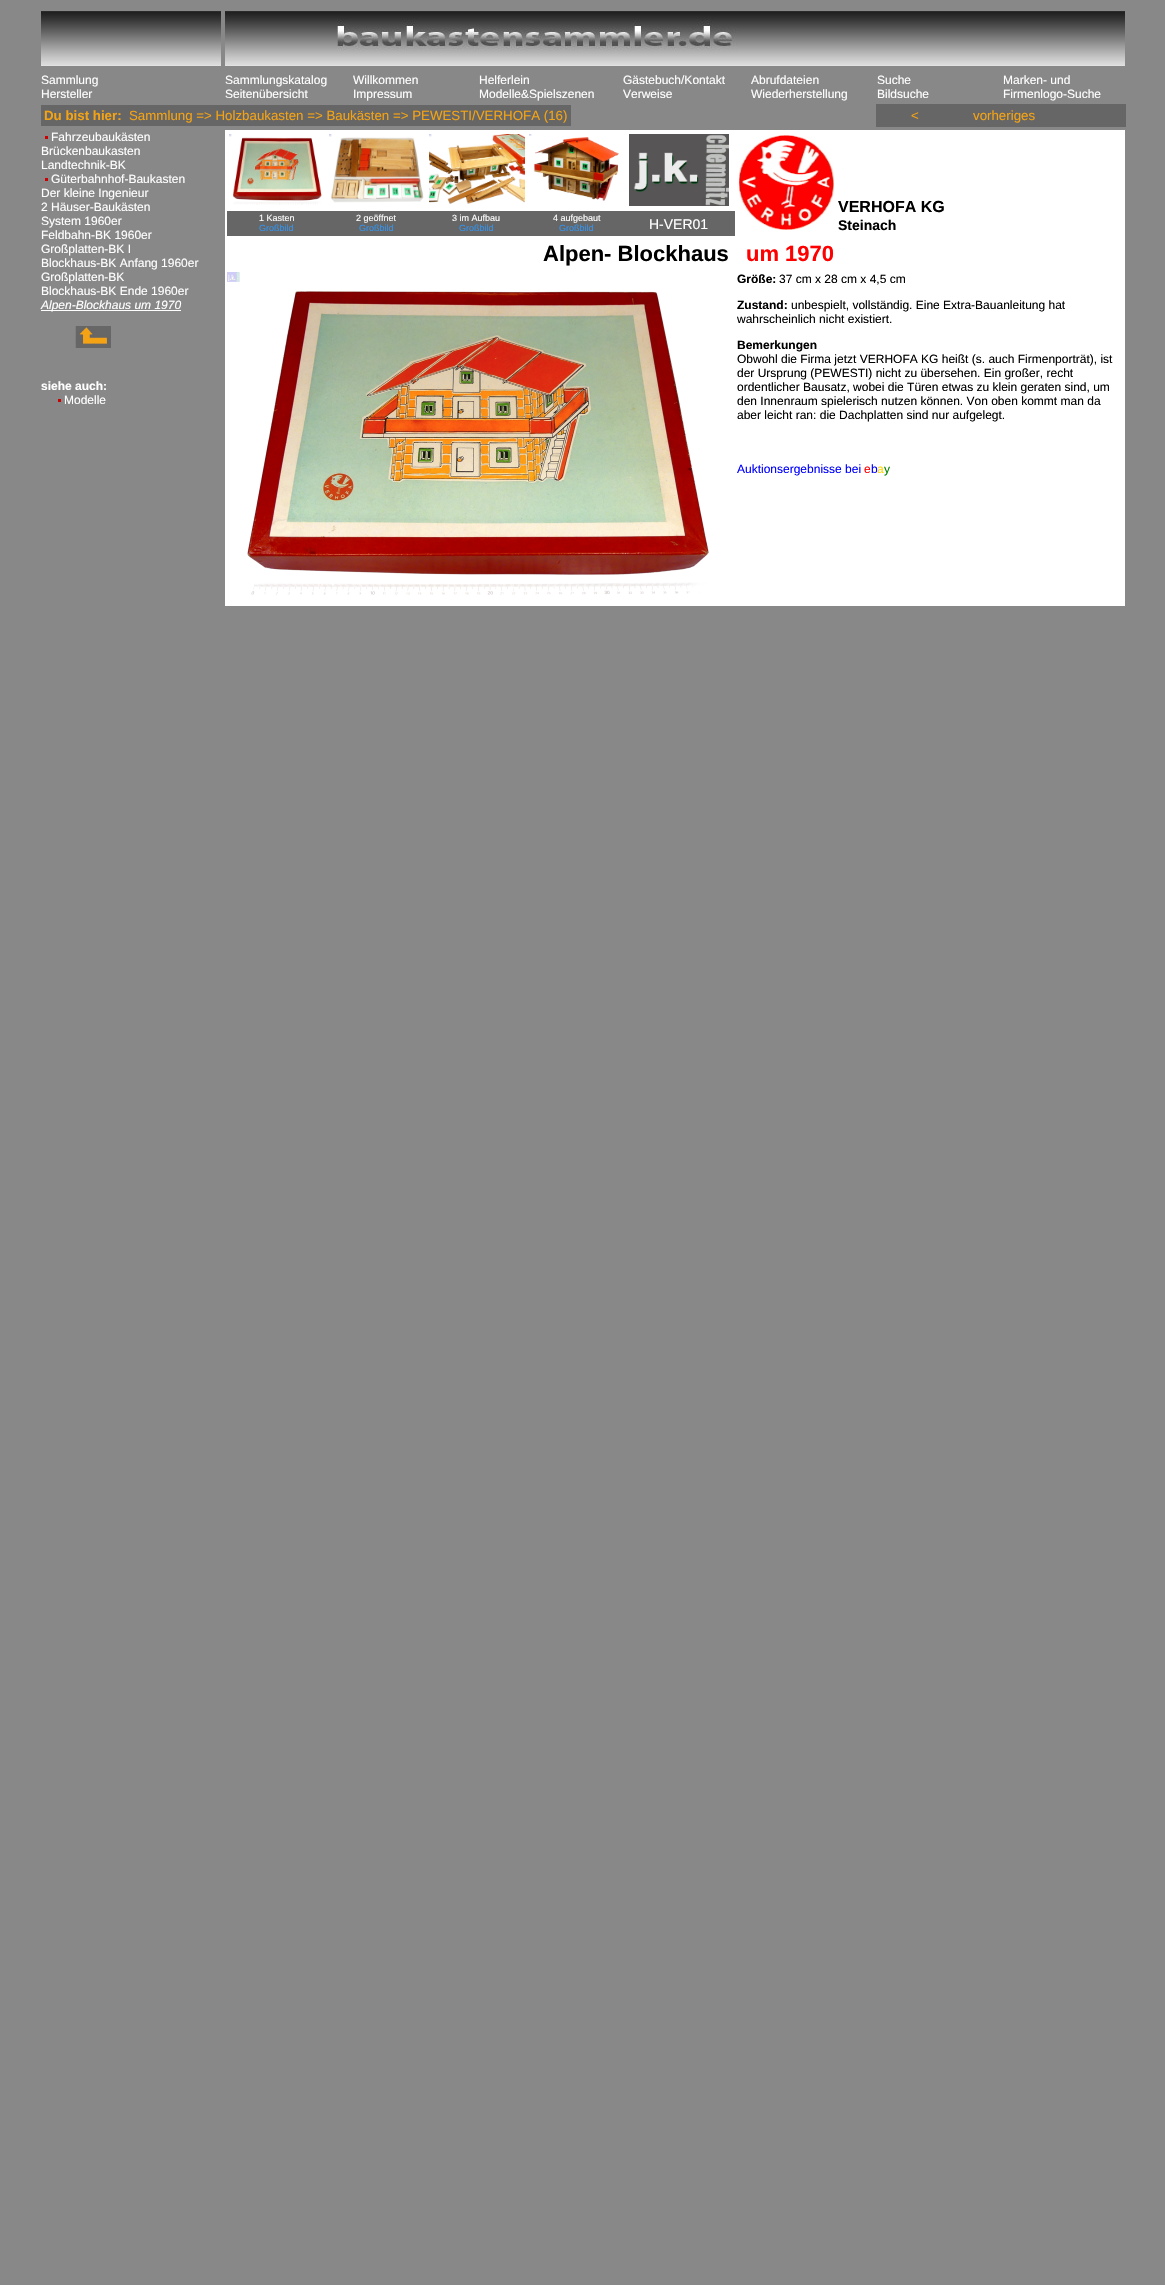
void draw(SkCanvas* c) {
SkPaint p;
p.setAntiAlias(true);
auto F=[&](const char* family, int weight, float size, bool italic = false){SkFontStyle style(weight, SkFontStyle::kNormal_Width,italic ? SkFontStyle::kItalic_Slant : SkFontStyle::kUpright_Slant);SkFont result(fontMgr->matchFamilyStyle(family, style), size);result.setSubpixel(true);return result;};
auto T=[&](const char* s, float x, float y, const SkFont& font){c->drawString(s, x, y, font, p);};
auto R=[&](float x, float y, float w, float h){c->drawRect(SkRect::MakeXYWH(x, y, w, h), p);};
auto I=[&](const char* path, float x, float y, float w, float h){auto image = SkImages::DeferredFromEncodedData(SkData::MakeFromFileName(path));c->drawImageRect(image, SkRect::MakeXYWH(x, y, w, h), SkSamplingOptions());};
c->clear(0xff888888);
I("1.png",41,11,180,55);
I("2.png",225,11,900,55);
auto f1 = F("Liberation Sans",400,12);
p.setColor(0xffffffff);
T("Sammlung",41,84,f1);
T("Hersteller",41,98,f1);
T("Sammlungskatalog",225,84,f1);
T("Seitenübersicht",225,98,f1);
T("Willkommen",353,84,f1);
T("Impressum",353,98,f1);
T("Helferlein",479,84,f1);
T("Modelle&Spielszenen",479,98,f1);
T("Gästebuch/Kontakt",623,84,f1);
T("Verweise",623,98,f1);
T("Abrufdateien",751,84,f1);
T("Wiederherstellung",751,98,f1);
T("Suche",877,84,f1);
T("Bildsuche",877,98,f1);
T("Marken- und",1003,84,f1);
T("Firmenlogo-Suche",1003,98,f1);
p.setColor(0xff666666);
R(41,105,530,21);
auto f2 = F("Liberation Sans",700,13.3);
p.setColor(0xfff4a315);
T("Du bist hier:",44,120,f2);
auto f3 = F("Liberation Sans",400,13.3);
T("Sammlung => Holzbaukasten => Baukästen => PEWESTI/VERHOFA (16)",129,120,f3);
p.setColor(0xff666666);
R(876,104,250,23);
p.setColor(0xfff4a315);
T("<",911,120,f3);
T("vorheriges",973,120,f3);
p.setColor(0xffcc0000);
R(45,136,3,3);
p.setColor(0xffffffff);
T("Fahrzeubaukästen",51,141,f1);
T("Brückenbaukasten",41,155,f1);
T("Landtechnik-BK",41,169,f1);
p.setColor(0xffcc0000);
R(45,178,3,3);
p.setColor(0xffffffff);
T("Güterbahnhof-Baukasten",51,183,f1);
T("Der kleine Ingenieur",41,197,f1);
T("2 Häuser-Baukästen",41,211,f1);
T("System 1960er",41,225,f1);
T("Feldbahn-BK 1960er",41,239,f1);
T("Großplatten-BK I",41,253,f1);
T("Blockhaus-BK Anfang 1960er",41,267,f1);
T("Großplatten-BK",41,281,f1);
T("Blockhaus-BK Ende 1960er",41,295,f1);
R(41,310,140,1);
auto f4 = F("Liberation Sans",400,12,true);
T("Alpen-Blockhaus um 1970",41,309,f4);
I("3.png",75,326,36,22);
auto f5 = F("Liberation Sans",700,12);
T("siehe auch:",41,390,f5);
p.setColor(0xffcc0000);
R(58,399,3,3);
p.setColor(0xffffffff);
T("Modelle",64,404,f1);
R(225,130,900,476);
I("4.png",229,134,93,71);
I("5.png",329,134,95,69);
I("6.png",429,134,96,70);
I("7.png",529,134,90,67);
I("8.png",629,134,100,72);
p.setColor(0xff666666);
R(227,211,508,25);
auto f6 = F("Liberation Sans",400,9);
p.setColor(0xffffffff);
T("1 Kasten",259,221,f6);
p.setColor(0xff3194f1);
T("Großbild",259,231,f6);
p.setColor(0xffffffff);
T("2 geöffnet",356,221,f6);
p.setColor(0xff3194f1);
T("Großbild",359,231,f6);
p.setColor(0xffffffff);
T("3 im Aufbau",452,221,f6);
p.setColor(0xff3194f1);
T("Großbild",459,231,f6);
p.setColor(0xffffffff);
T("4 aufgebaut",553,221,f6);
p.setColor(0xff3194f1);
T("Großbild",559,231,f6);
auto f7 = F("Liberation Sans",400,14);
p.setColor(0xffffffff);
T("H-VER01",649,229,f7);
I("9.png",739,135,95,95);
auto f8 = F("Liberation Sans",700,16);
p.setColor(0xff000000);
T("VERHOFA KG",838,212,f8);
auto f9 = F("Liberation Sans",700,14);
T("Steinach",838,230,f9);
auto f10 = F("Liberation Sans",700,22);
T("Alpen- Blockhaus",543,261,f10);
p.setColor(0xffff0000);
T("um 1970",746,261,f10);
I("10.png",227,272,482,323);
p.setColor(0xff000000);
T("Größe:",737,283,f5);
T("37 cm x 28 cm x 4,5 cm",779,283,f1);
T("Zustand:",737,309,f5);
T("unbespielt, vollständig. Eine Extra-Bauanleitung hat",791,309,f1);
T("wahrscheinlich nicht existiert.",737,323,f1);
T("Bemerkungen",737,349,f5);
T("Obwohl die Firma jetzt VERHOFA KG heißt (s. auch Firmenporträt), ist",737,363,f1);
T("der Ursprung (PEWESTI) nicht zu übersehen. Ein großer, recht",737,377,f1);
T("ordentlicher Bausatz, wobei die Türen etwas zu klein geraten sind, um",737,391,f1);
T("den Innenraum spielerisch nutzen können. Von oben kommt man da",737,405,f1);
T("aber leicht ran: die Dachplatten sind nur aufgelegt.",737,419,f1);
p.setColor(0xff0000ff);
T("Auktionsergebnisse bei",737,473,f1);
p.setColor(0xffff0000);
T("e",864,473,f1);
p.setColor(0xff0000ff);
T("b",871,473,f1);
p.setColor(0xffffd700);
T("a",877,473,f1);
p.setColor(0xff008000);
T("y",884,473,f1);
}
